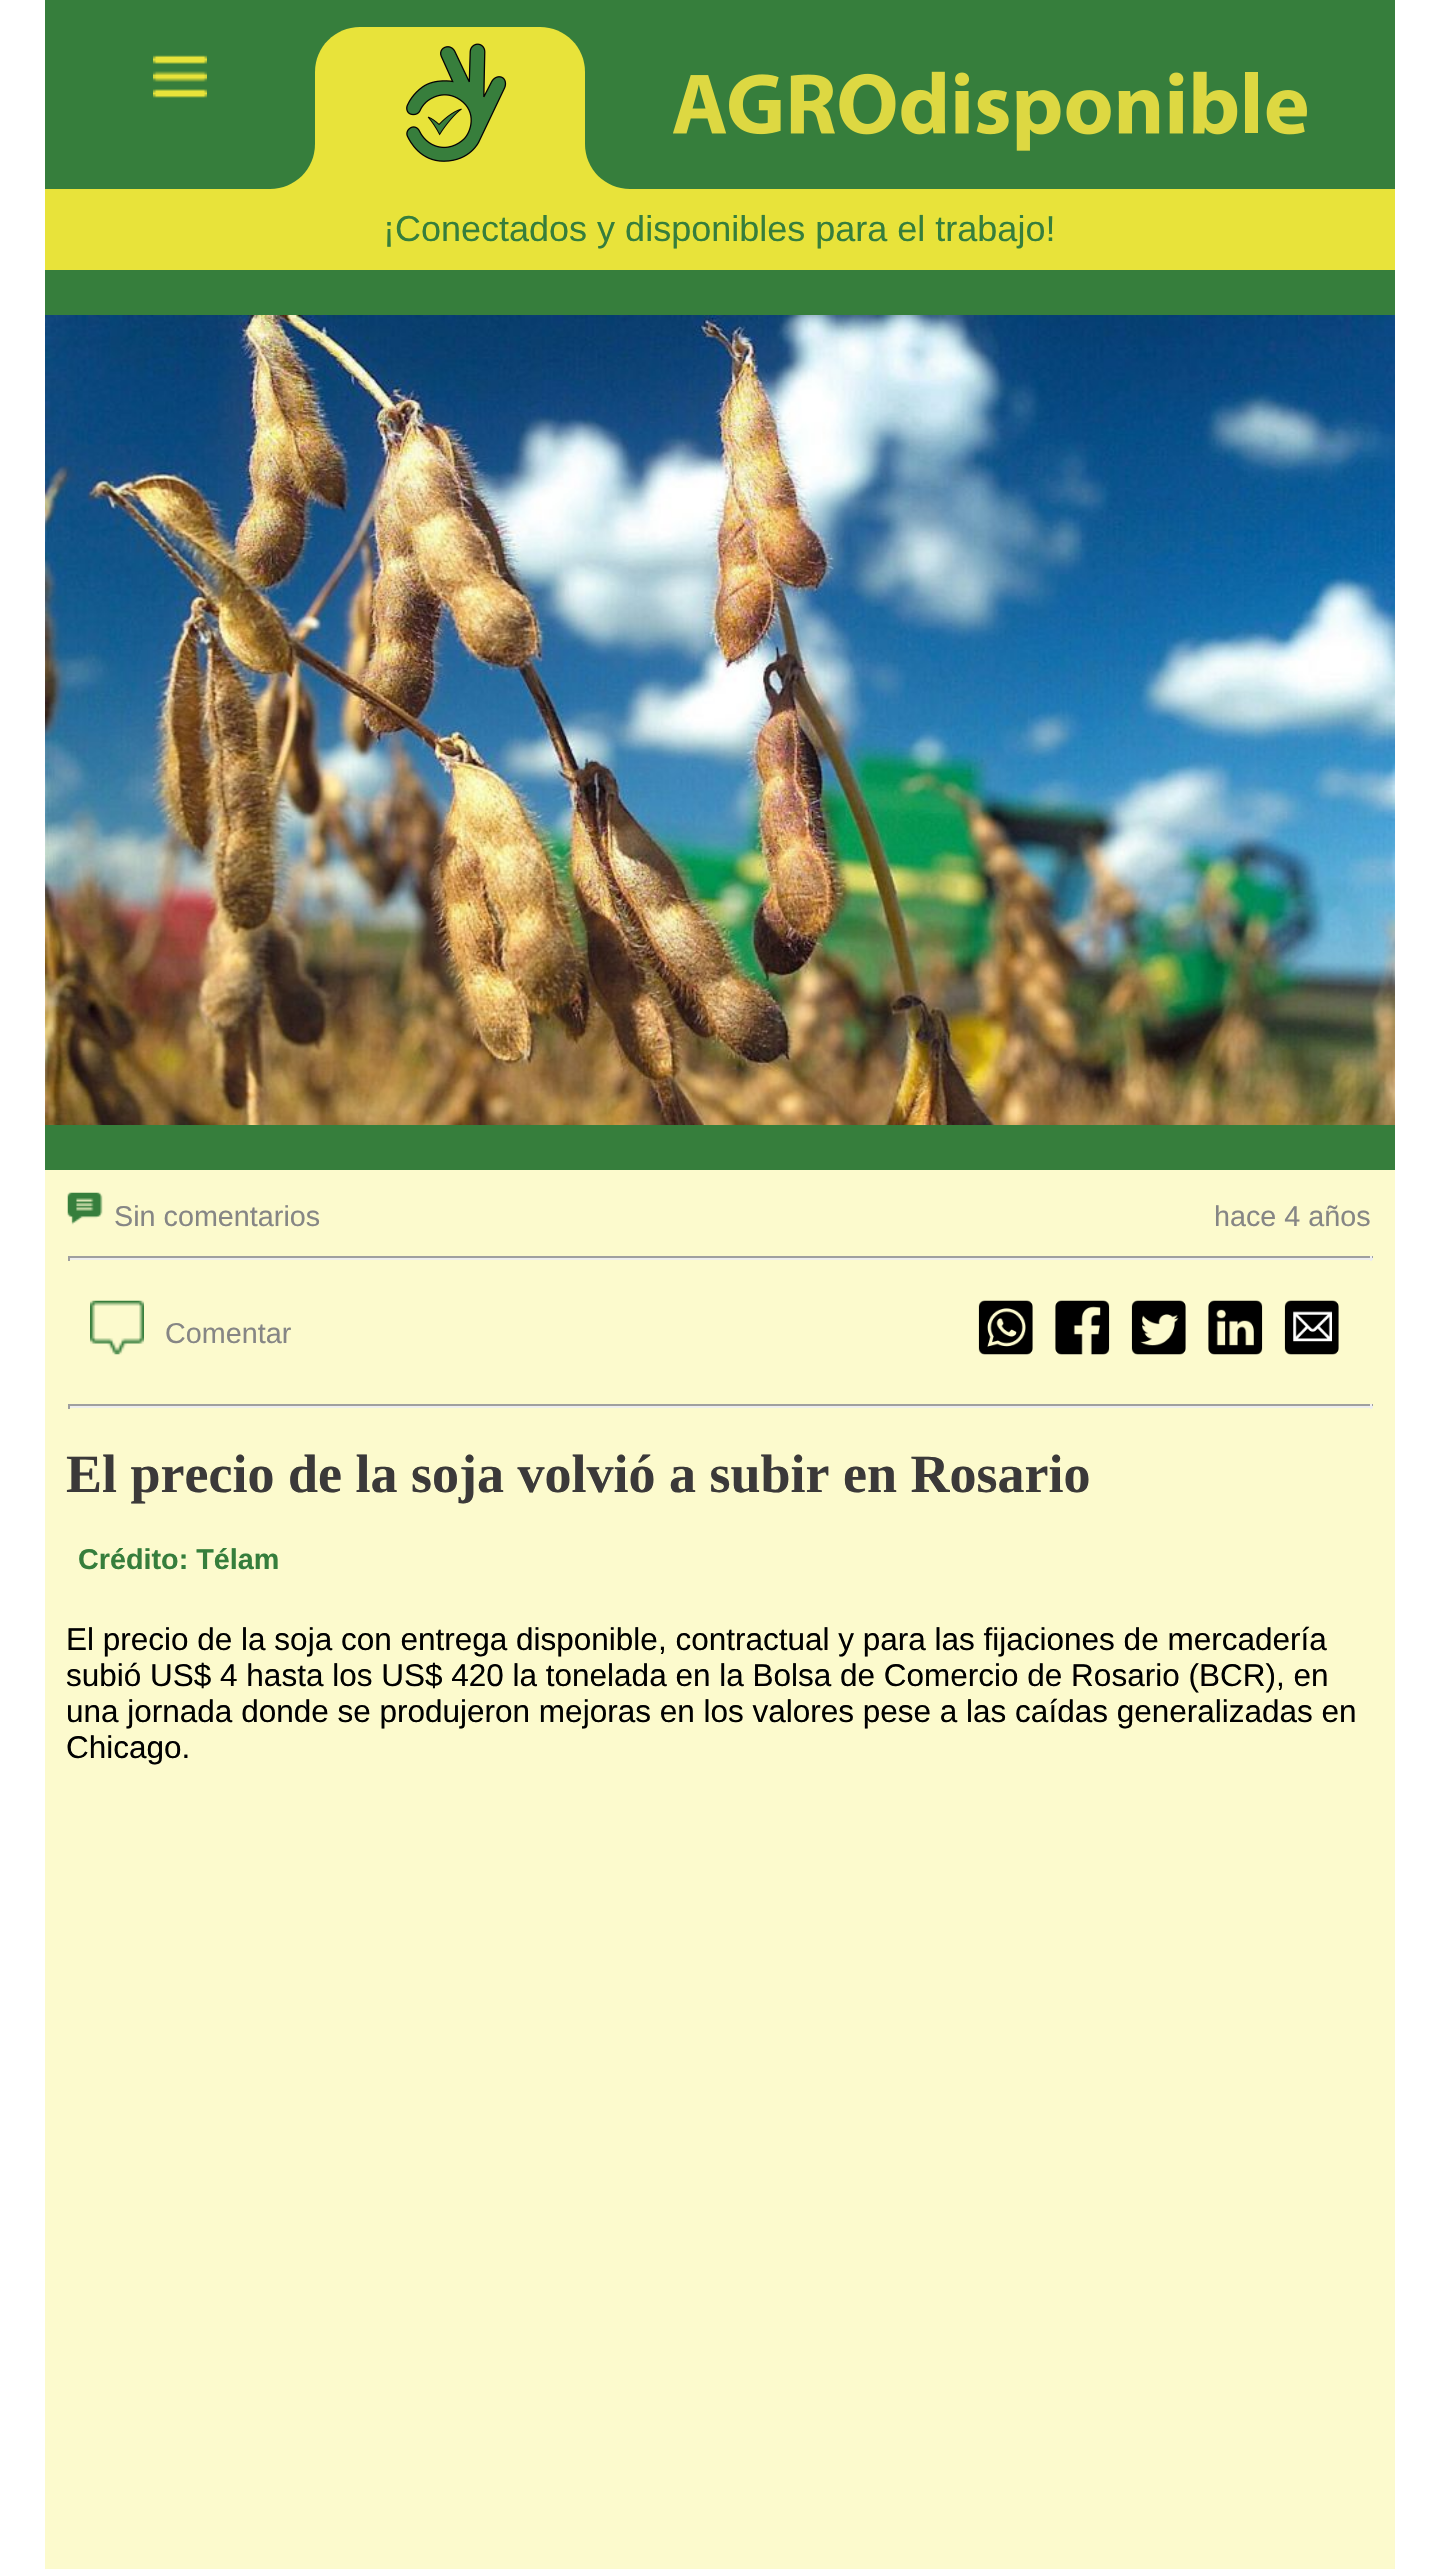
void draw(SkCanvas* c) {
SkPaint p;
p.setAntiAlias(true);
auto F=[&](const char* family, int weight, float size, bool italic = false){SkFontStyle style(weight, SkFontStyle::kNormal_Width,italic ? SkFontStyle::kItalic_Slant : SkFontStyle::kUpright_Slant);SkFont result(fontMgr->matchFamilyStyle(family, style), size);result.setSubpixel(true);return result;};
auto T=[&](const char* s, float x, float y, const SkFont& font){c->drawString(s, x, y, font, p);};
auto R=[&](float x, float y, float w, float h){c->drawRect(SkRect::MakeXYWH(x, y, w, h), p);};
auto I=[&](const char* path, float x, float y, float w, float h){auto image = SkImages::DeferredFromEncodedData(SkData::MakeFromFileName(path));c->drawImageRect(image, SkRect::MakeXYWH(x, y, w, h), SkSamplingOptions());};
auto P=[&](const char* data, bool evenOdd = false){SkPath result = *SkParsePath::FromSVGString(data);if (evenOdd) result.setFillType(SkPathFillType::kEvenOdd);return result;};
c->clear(0xffffffff);
p.setColor(0xfffcfacd);
R(45,1170,1350,1399);
p.setColor(0xff367e3c);
R(45,0,1350,72);
p.setColor(0xffe8e33a);
R(270,144,45,45);
p.setColor(0xff367e3c);
c->drawPath(P("M45 27h270v117c0 25-20 45-45 45h-225z"),p);
I("1.png",153,55,54,43);
p.setColor(0xffe8e33a);
c->drawPath(P("M360 27h180c25 0 45 20 45 45v117h-270v-117c0-25 20-45 45-45z"),p);
I("2.png",406,43,101,119);
R(585,144,45,45);
p.setColor(0xff367e3c);
c->drawPath(P("M585 27h810v162h-765c-25 0-45-20-45-45z"),p);
I("3.png",673,71,634,80);
p.setColor(0xffe8e33a);
R(45,189,1350,81);
auto f1 = F("Liberation Sans",400,36);
p.setColor(0xff367e3c);
T("¡Conectados y disponibles para el trabajo!",383,241,f1);
R(45,270,1350,900);
I("4.png",45,315,1350,810);
I("5.png",67,1192,36,33);
auto f2 = F("Liberation Sans",400,28.75);
p.setColor(0xff868685);
T("Sin comentarios",114,1226,f2);
T("hace 4 años",1214,1226,f2);
p.setColor(0xff9f9f9f);
R(68,1256,1305,2);
p.setColor(0xffeeeeee);
R(1370,1256,2,5);
R(68,1258,1305,2);
p.setColor(0xff9f9f9f);
R(68,1256,2,5);
I("6.png",90,1300,54,55);
p.setColor(0xff868685);
T("Comentar",165,1343,f2);
I("7.png",978,1300,55,55);
I("8.png",1055,1300,55,55);
I("9.png",1131,1300,55,55);
I("10.png",1208,1300,55,55);
I("11.png",1284,1300,55,55);
p.setColor(0xff9f9f9f);
R(68,1404,1305,2);
p.setColor(0xffeeeeee);
R(1370,1404,2,5);
R(68,1406,1305,2);
p.setColor(0xff9f9f9f);
R(68,1404,2,5);
auto f3 = F("Liberation Serif",700,54);
p.setColor(0xff3b3939);
T("El precio de la soja volvió a subir en Rosario",66,1492,f3);
auto f4 = F("Liberation Sans",700,28.75);
p.setColor(0xff367e3c);
T("Crédito: Télam",78,1569,f4);
auto f5 = F("Liberation Sans",400,31.5);
p.setColor(0xff000000);
T("El precio de la soja con entrega disponible, contractual y para las fijaciones de mercadería",66,1650,f5);
T("subió US$ 4 hasta los US$ 420 la tonelada en la Bolsa de Comercio de Rosario (BCR), en",66,1686,f5);
T("una jornada donde se produjeron mejoras en los valores pese a las caídas generalizadas en",66,1722,f5);
T("Chicago.",66,1758,f5);
}
